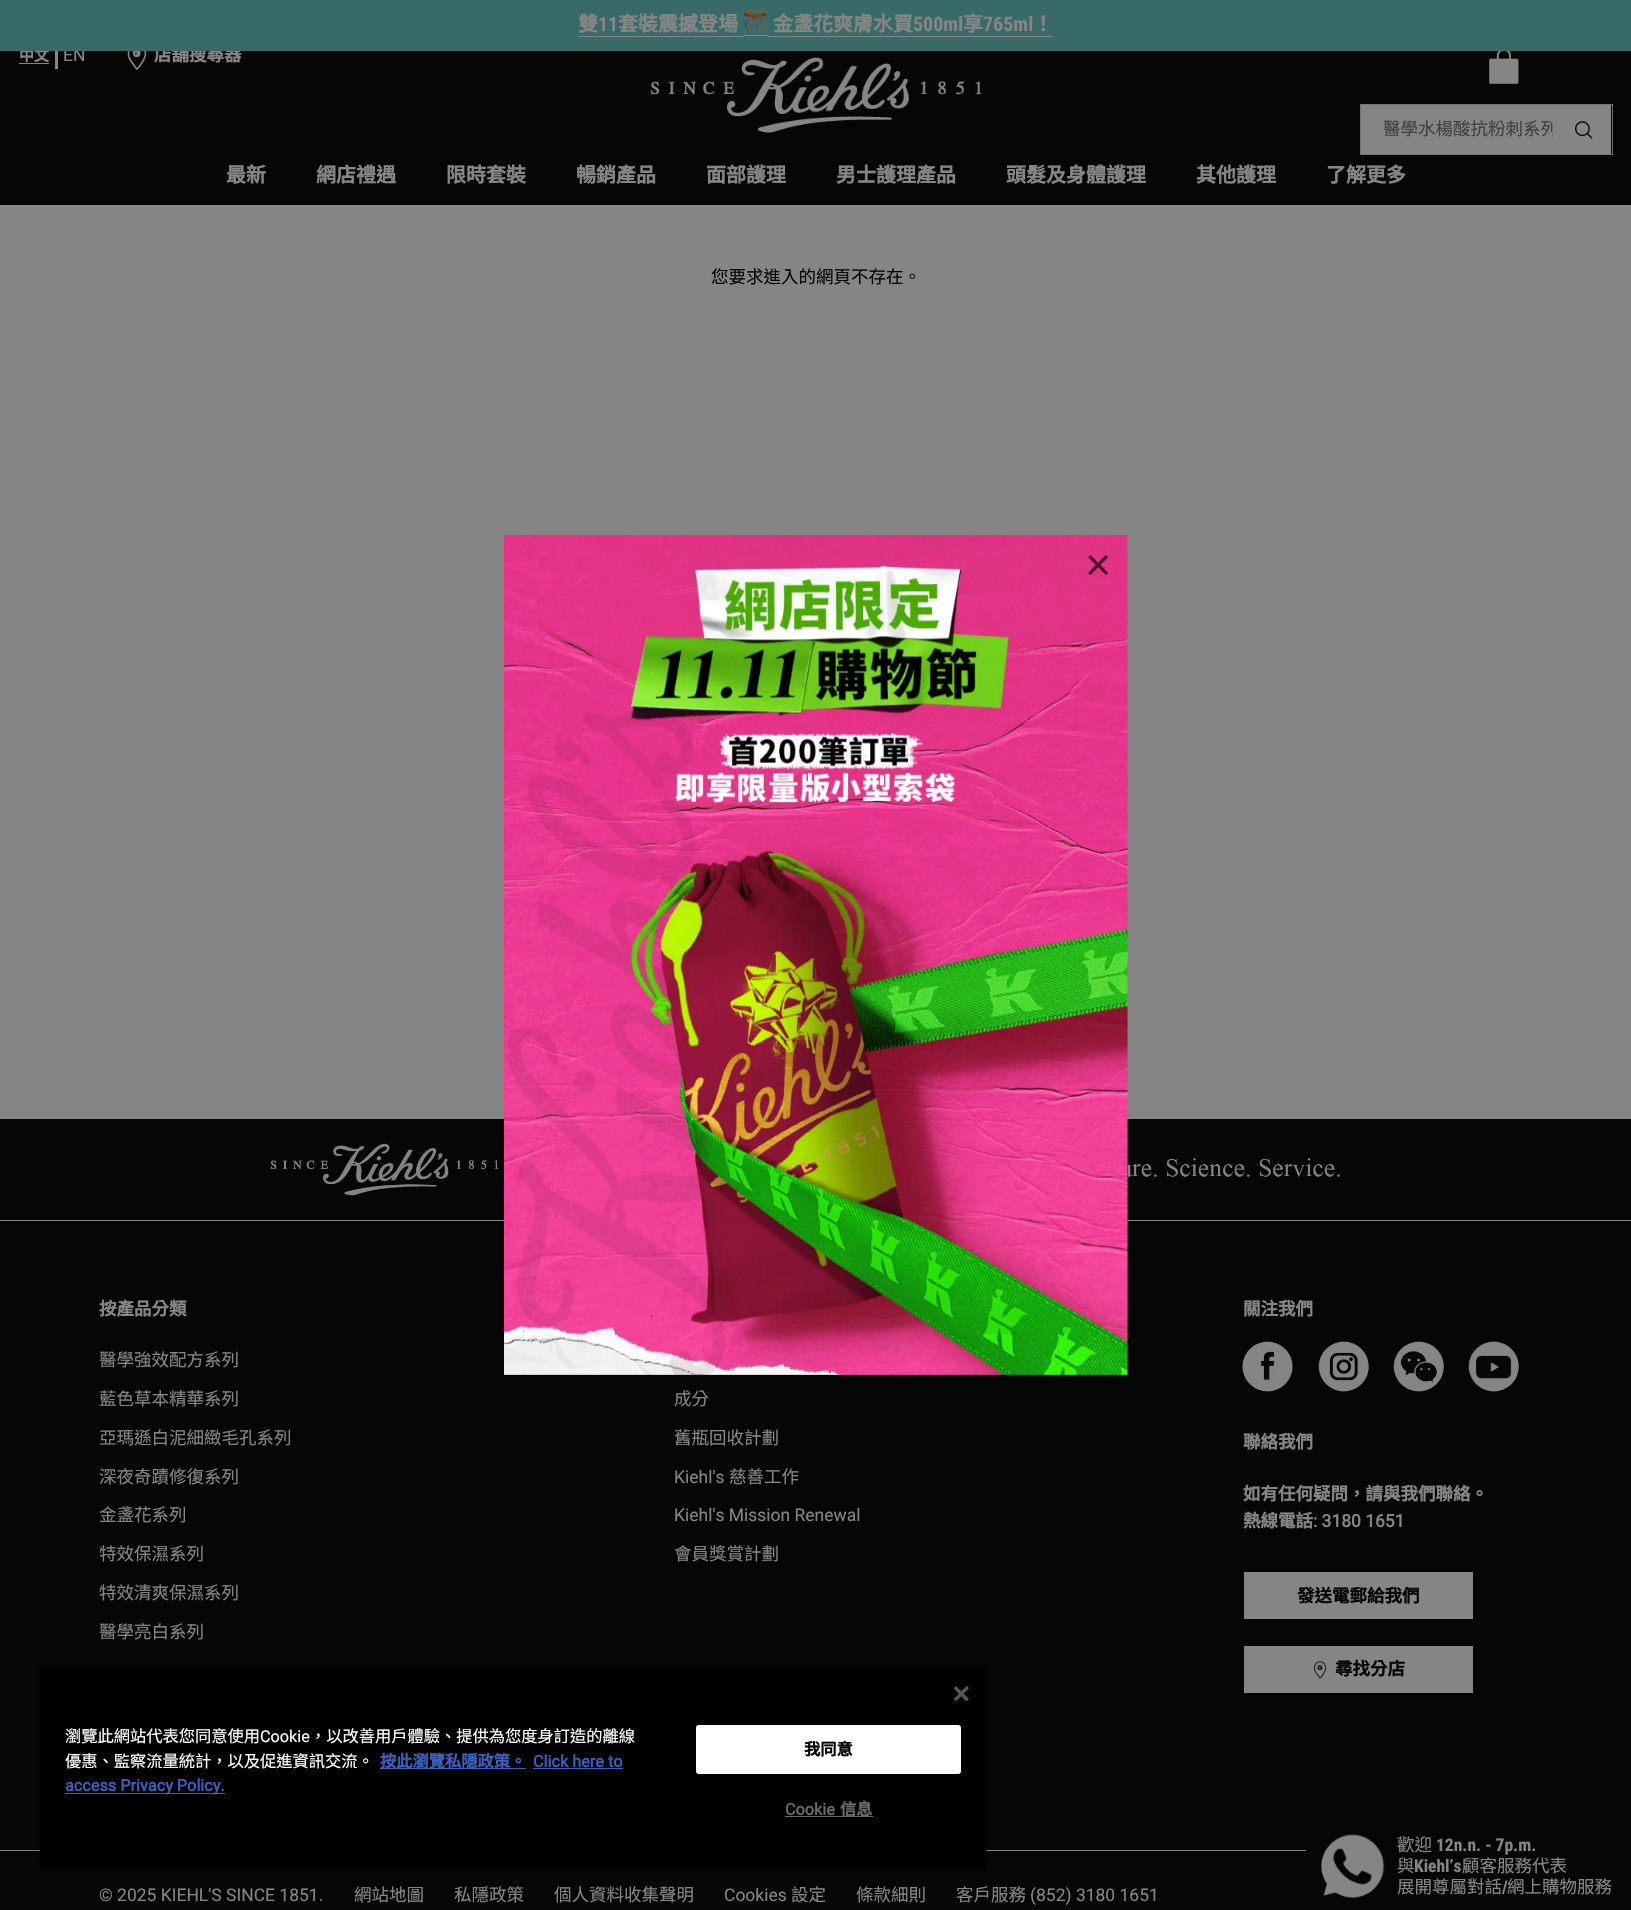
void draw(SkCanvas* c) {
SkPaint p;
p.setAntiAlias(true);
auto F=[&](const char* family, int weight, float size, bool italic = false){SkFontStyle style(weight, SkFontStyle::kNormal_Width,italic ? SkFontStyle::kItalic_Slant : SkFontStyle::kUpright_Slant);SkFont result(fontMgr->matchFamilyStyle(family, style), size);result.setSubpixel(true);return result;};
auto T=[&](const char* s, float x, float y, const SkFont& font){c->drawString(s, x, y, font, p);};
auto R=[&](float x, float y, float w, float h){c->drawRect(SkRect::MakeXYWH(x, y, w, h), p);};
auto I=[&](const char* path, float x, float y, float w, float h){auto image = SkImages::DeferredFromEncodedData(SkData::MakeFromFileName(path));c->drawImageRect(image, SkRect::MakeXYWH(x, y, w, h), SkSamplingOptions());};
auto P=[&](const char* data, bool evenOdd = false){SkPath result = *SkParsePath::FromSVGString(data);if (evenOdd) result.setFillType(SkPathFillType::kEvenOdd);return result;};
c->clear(0xff858585);
p.setColor(0xff060606);
R(0,51,1631,154);
auto f1 = F("Noto Sans TC",700,15);
p.setColor(0xff858585);
T("中文",19,61,f1);
R(55,43,3,26);
auto f2 = F("Roboto",400,17.5);
T("EN",63,61,f2);
auto f3 = F("Noto Sans TC",700,17.5);
T("店舖搜尋器",154,61,f3);
p.setColor(0xff386a67);
R(0,0,1631,51);
auto f4 = F("Noto Sans TC",700,20);
p.setColor(0xff858585);
T("雙",578,31,f4);
R(579,36,164,1);
auto f5 = F("Roboto Condensed",700,20);
T("11",598,31,f5);
T("套裝震撼登場",618,31,f4);
R(743,35,25,1);
I("1.png",742,10,26,25);
T("金盞花爽膚水買",773,31,f4);
T("500ml",913,31,f5);
R(768,36,285,1);
T("享",963,31,f4);
T("765ml",983,31,f5);
T("！",1033,31,f4);
R(19,63,30,1);
I("2.png",127,51,20,19);
I("3.png",1489,51,30,33);
p.setStroke(true);
p.setStrokeWidth(1);
p.setColor(0xff747474);
c->drawRect(SkRect::MakeXYWH(1360.5,104.5,252,50),p);
p.setStroke(false);
p.setColor(0xff858585);
R(1361,105,250,49);
c->save();
c->clipRect(SkRect::MakeXYWH(1383,115,170,25));
auto f6 = F("Noto Sans TC",400,17.5);
p.setColor(0xff404040);
T("醫學水楊酸抗粉刺系列",1383,135,f6);
c->restore();
I("4.png",1575,121,18,18);
I("5.png",650,57,332,76);
p.setColor(0xff858585);
T("最新",226,182,f4);
T("網店禮遇",316,182,f4);
T("限時套裝",446,182,f4);
T("暢銷產品",576,182,f4);
T("面部護理",706,182,f4);
T("男士護理產品",836,182,f4);
T("頭髮及身體護理",1006,182,f4);
T("其他護理",1196,182,f4);
T("了解更多",1326,182,f4);
p.setColor(0xff060606);
T("您要求進入的網頁不存在。",711,283,f6);
R(0,1119,1631,791);
p.setColor(0xff858585);
R(0,1220,1631,1);
I("7.png",269,1142,1072,54);
I("6.png",504,535,624,840);
auto f7 = F("Liberation Sans",400,45);
p.setColor(0xff4f122e);
T("×",1085,580,f7);
p.setColor(0xff858585);
T("按產品分類",99,1315,f3);
T("醫學強效配方系列",99,1366,f6);
T("藍色草本精華系列",99,1405,f6);
T("亞瑪遜白泥細緻毛孔系列",99,1444,f6);
T("深夜奇蹟修復系列",99,1483,f6);
T("金盞花系列",99,1521,f6);
T("特效保濕系列",99,1560,f6);
T("特效清爽保濕系列",99,1599,f6);
T("醫學亮白系列",99,1638,f6);
T("成分",674,1405,f6);
T("舊瓶回收計劃",674,1444,f6);
T("Kiehl's",674,1483,f2);
T("慈善工作",729,1483,f6);
T("Kiehl's Mission Renewal",674,1521,f2);
T("會員獎賞計劃",674,1560,f6);
T("關注我們",1243,1315,f3);
I("8.png",1242,1341,51,51);
I("9.png",1318,1341,51,51);
I("10.png",1393,1341,51,51);
I("11.png",1468,1341,51,51);
T("聯絡我們",1243,1448,f3);
T("如有任何疑問，請與我們聯絡。",1243,1500,f3);
T("熱線電話",1243,1527,f3);
auto f8 = F("Roboto",700,17.5);
T(": 3180 1651",1313,1527,f8);
R(1244,1572,229,47);
p.setColor(0xff060606);
T("發送電郵給我們",1297,1602,f3);
p.setColor(0xff858585);
R(1244,1646,229,47);
I("12.png",1313,1661,14,18);
p.setColor(0xff060606);
T("尋找分店",1335,1675,f3);
p.setColor(0xff858585);
R(0,1850,1307,1);
T("© 2025 KIEHL'S SINCE 1851.",99,1901,f2);
T("網站地圖",354,1901,f6);
T("私隱政策",454,1901,f6);
T("個人資料收集聲明",554,1901,f6);
T("Cookies",724,1901,f2);
T("設定",791,1901,f6);
T("條款細則",856,1901,f6);
T("客戶服務",956,1901,f6);
T("(852) 3180 1651",1030,1901,f2);
c->save();
c->clipPath(P("M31 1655h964v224h-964zm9 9h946v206h-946z",true),true);
p.setColor(0x59000000);
p.setMaskFilter(SkMaskFilter::MakeBlur(kNormal_SkBlurStyle, 2.5));
c->drawRect(SkRect::MakeXYWH(40,1664,946,206),p);
p.setMaskFilter(nullptr);
c->restore();
c->save();
c->clipRect(SkRect::MakeXYWH(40,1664,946,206));
p.setColor(0x33000000);
p.setMaskFilter(SkMaskFilter::MakeBlur(kNormal_SkBlurStyle, 2.5));
c->drawRect(SkRect::MakeXYWH(40,1666,946,204),p);
p.setMaskFilter(nullptr);
c->restore();
p.setColor(0xff000000);
R(40,1666,946,204);
I("13.png",954,1686,15,15);
auto f9 = F("Noto Sans TC",400,16.25);
p.setColor(0xffffffff);
T("瀏覽此網站代表您同意使用",65,1742,f9);
auto f10 = F("Roboto",400,16.25);
T("Cookie",260,1742,f10);
T("，以改善用戶體驗、提供為您度身訂造的離線",310,1742,f9);
T("優惠、監察流量統計，以及促進資訊交流。",65,1767,f9);
p.setColor(0xff3860be);
R(380,1768,146,1);
auto f11 = F("Noto Sans TC",700,16.25);
T("按此瀏覽私隱政策。",380,1767,f11);
auto f12 = F("Roboto",700,16.25);
T("Click here to",533,1767,f12);
R(533,1768,90,1);
R(65,1793,160,1);
T("access Privacy Policy.",65,1791,f12);
p.setColor(0xffffffff);
c->drawRoundRect(SkRect::MakeXYWH(696.5,1725.5,264,48),2,2,p);
p.setStroke(true);
c->drawRoundRect(SkRect::MakeXYWH(696.5,1725.5,264,48),2,2,p);
p.setStroke(false);
p.setColor(0xff000000);
T("我同意",804,1755,f11);
p.setColor(0xff696969);
T("Cookie",785,1815,f12);
R(785,1816,88,1);
T("信息",840,1815,f11);
p.setColor(0xff060606);
c->drawPath(P("M1346.5 1823h284.5v87h-284.5c-24 0-43.5-19.5-43.5-43.5c0-24 19.5-43.5 43.5-43.5z"),p);
I("14.png",1321,1834,64,64);
p.setColor(0xff858585);
T("歡迎",1397,1851,f6);
auto f13 = F("Roboto Condensed",700,17.5);
T("12n.n. - 7p.m.",1436,1851,f13);
T("與",1397,1872,f6);
T("Kiehl’s",1414,1872,f13);
T("顧客服務代表",1462,1872,f6);
T("展開尊屬對話",1397,1893,f6);
T("/",1502,1893,f13);
T("網上購物服務",1507,1893,f6);
}
